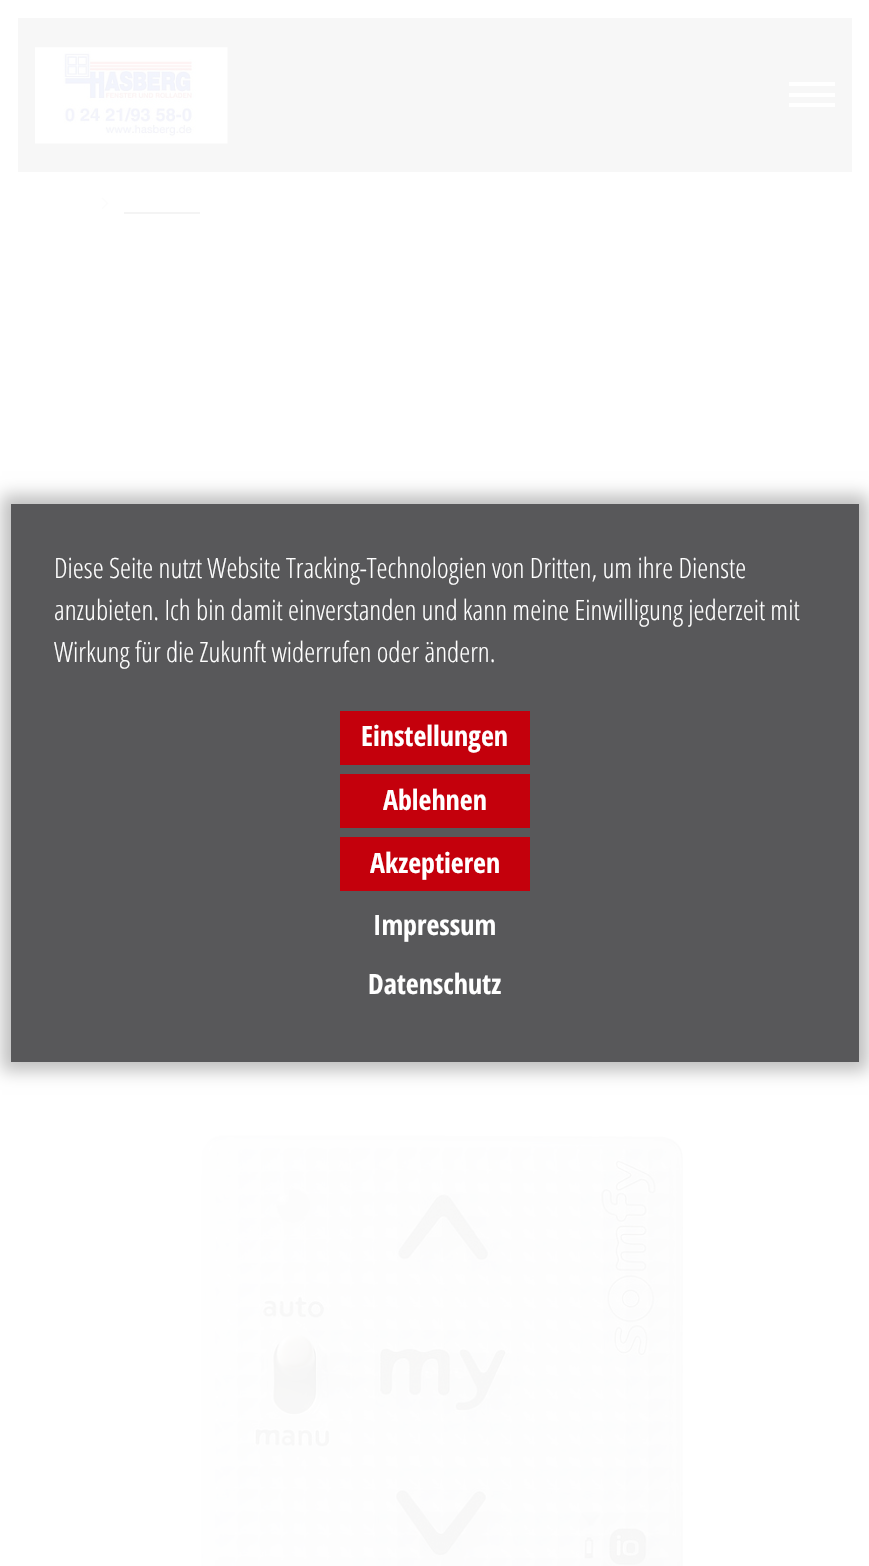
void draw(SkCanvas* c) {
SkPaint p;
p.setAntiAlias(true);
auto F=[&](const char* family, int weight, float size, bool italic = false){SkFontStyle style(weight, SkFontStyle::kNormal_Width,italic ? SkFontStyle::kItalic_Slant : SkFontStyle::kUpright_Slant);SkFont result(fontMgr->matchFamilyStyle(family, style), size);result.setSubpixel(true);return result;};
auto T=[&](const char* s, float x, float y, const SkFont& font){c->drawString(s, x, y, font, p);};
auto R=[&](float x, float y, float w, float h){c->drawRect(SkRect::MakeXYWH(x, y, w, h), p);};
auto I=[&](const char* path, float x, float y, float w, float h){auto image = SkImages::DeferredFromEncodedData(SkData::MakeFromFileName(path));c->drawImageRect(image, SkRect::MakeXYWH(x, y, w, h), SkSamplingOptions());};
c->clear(0xffffffff);
p.setColor(0xfff7f7f7);
R(18,18,834,154);
I("1.png",35,47,193,97);
p.setColor(0xffffffff);
R(789,82,46,4);
R(789,93,46,4);
R(789,103,46,4);
I("2.png",101,197,8,12);
p.setColor(0xfff4f4f4);
R(124,212,76,2);
I("3.png",201,1126,488,440);
p.setColor(0x40000000);
p.setMaskFilter(SkMaskFilter::MakeBlur(kNormal_SkBlurStyle, 8));
c->drawRect(SkRect::MakeXYWH(2,495,866,576),p);
p.setMaskFilter(nullptr);
p.setColor(0xff58585a);
R(11,504,848,558);
auto f1 = F("Open Sans Condensed",300,28);
p.setColor(0xffffffff);
T("Diese Seite nutzt Website Tracking-Technologien von Dritten, um ihre Dienste",54,578,f1);
T("anzubieten. Ich bin damit einverstanden und kann meine Einwilligung jederzeit mit",54,620,f1);
T("Wirkung für die Zukunft widerrufen oder ändern.",54,662,f1);
p.setColor(0xffc4000c);
R(340,711,190,54);
auto f2 = F("Open Sans Condensed",700,28);
p.setColor(0xffffffff);
T("Einstellungen",361,746,f2);
p.setColor(0xffc4000c);
R(340,774,190,54);
p.setColor(0xffffffff);
T("Ablehnen",383,810,f2);
p.setColor(0xffc4000c);
R(340,837,190,54);
p.setColor(0xffffffff);
T("Akzeptieren",370,873,f2);
T("Impressum",373,935,f2);
T("Datenschutz",368,994,f2);
}
